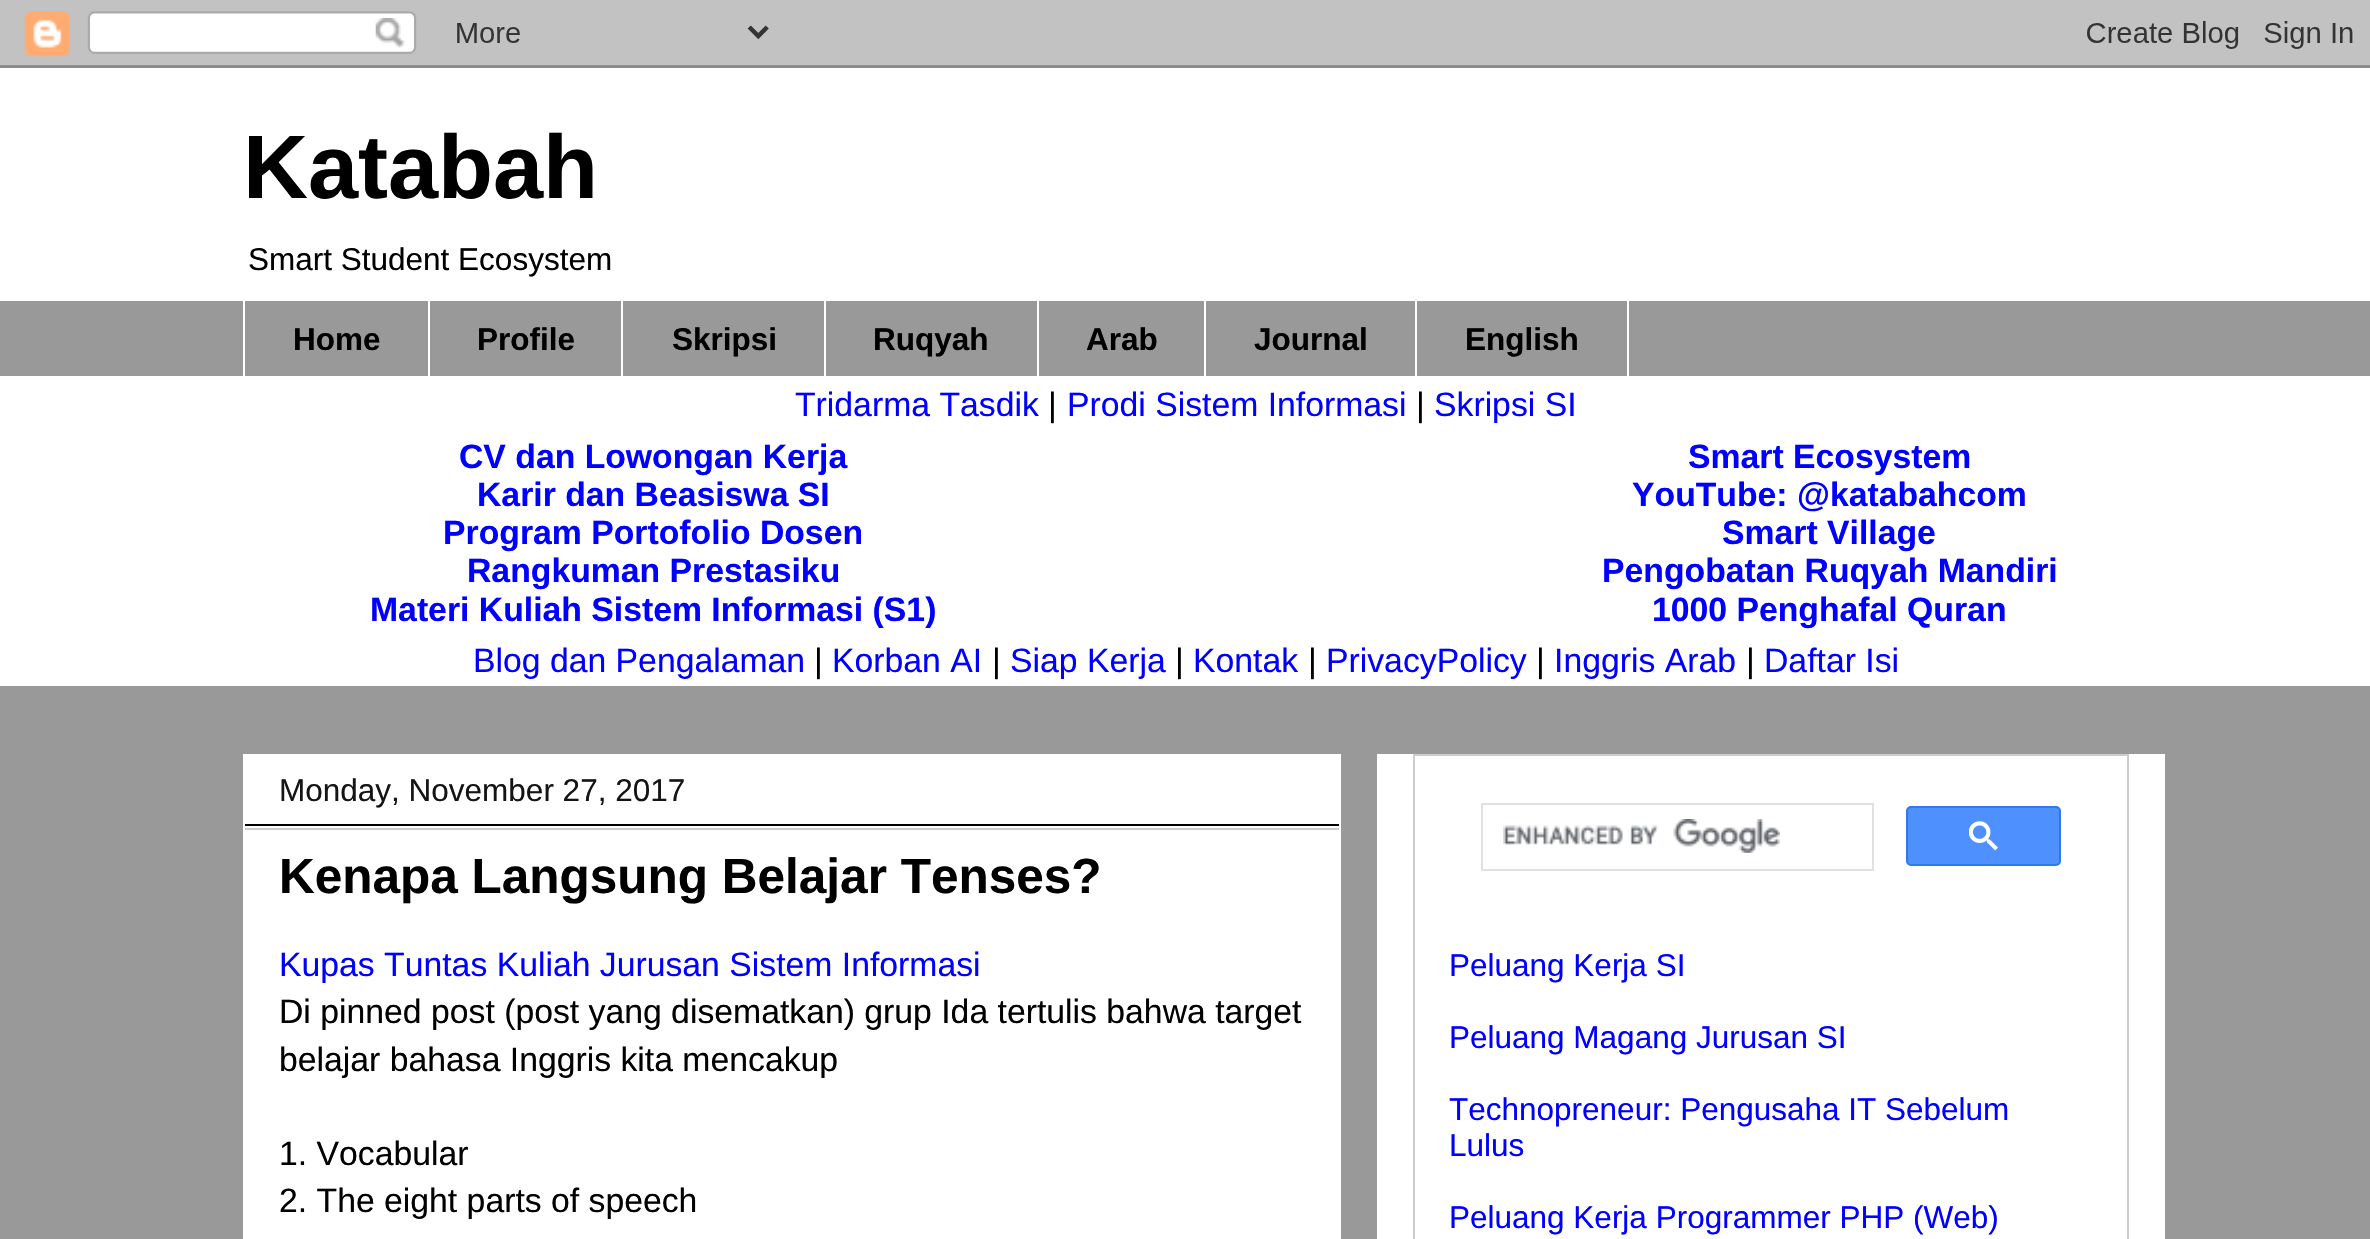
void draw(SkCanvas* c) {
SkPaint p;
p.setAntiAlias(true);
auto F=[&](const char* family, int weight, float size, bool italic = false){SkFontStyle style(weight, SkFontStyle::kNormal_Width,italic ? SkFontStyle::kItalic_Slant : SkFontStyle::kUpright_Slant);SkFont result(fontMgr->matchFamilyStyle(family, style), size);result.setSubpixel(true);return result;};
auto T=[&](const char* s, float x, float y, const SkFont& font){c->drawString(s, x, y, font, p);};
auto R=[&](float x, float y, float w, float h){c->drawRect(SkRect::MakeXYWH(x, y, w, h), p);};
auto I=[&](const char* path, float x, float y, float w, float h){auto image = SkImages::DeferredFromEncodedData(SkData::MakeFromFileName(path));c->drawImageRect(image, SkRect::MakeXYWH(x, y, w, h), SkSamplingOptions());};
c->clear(0xff999999);
I("1.png",0,0,2370,68);
p.setColor(0xffffffff);
R(0,68,2370,233);
auto f1 = F("Liberation Sans",700,90);
p.setColor(0xff000000);
T("Katabah",243,198,f1);
auto f2 = F("Liberation Sans",400,31.5);
T("Smart Student Ecosystem",248,270,f2);
p.setColor(0xffffffff);
R(243,299,2,79);
auto f3 = F("Liberation Sans",700,31.5);
p.setColor(0xff000000);
T("Home",293,350,f3);
p.setColor(0xffffffff);
R(428,299,2,79);
p.setColor(0xff000000);
T("Profile",477,350,f3);
p.setColor(0xffffffff);
R(621,299,2,79);
p.setColor(0xff000000);
T("Skripsi",672,350,f3);
p.setColor(0xffffffff);
R(824,299,2,79);
p.setColor(0xff000000);
T("Ruqyah",873,350,f3);
p.setColor(0xffffffff);
R(1037,299,2,79);
p.setColor(0xff000000);
T("Arab",1086,350,f3);
p.setColor(0xffffffff);
R(1204,299,2,79);
p.setColor(0xff000000);
T("Journal",1254,350,f3);
p.setStroke(true);
p.setStrokeWidth(2);
p.setColor(0xffffffff);
c->drawRect(SkRect::MakeXYWH(1416,300,212,77),p);
p.setStroke(false);
p.setColor(0xff000000);
T("English",1465,350,f3);
p.setColor(0xffffffff);
R(0,376,2370,2);
R(0,378,2370,308);
auto f4 = F("Liberation Sans",400,33.75);
p.setColor(0xff0000ff);
T("Tridarma Tasdik",795,416,f4);
p.setColor(0xff000000);
T("|",1048,416,f4);
p.setColor(0xff0000ff);
T("Prodi Sistem Informasi",1067,416,f4);
p.setColor(0xff000000);
T("|",1416,416,f4);
p.setColor(0xff0000ff);
T("Skripsi SI",1434,416,f4);
auto f5 = F("Liberation Sans",700,33.75);
T("CV dan Lowongan Kerja",459,468,f5);
T("Karir dan Beasiswa SI",477,506,f5);
T("Program Portofolio Dosen",443,544,f5);
T("Rangkuman Prestasiku",467,582,f5);
T("Materi Kuliah Sistem Informasi (S1)",370,621,f5);
T("Smart Ecosystem",1688,468,f5);
T("YouTube: @katabahcom",1632,506,f5);
T("Smart Village",1722,544,f5);
T("Pengobatan Ruqyah Mandiri",1602,582,f5);
T("1000 Penghafal Quran",1652,621,f5);
T("Blog dan Pengalaman",473,672,f4);
p.setColor(0xff000000);
T("|",814,672,f4);
p.setColor(0xff0000ff);
T("Korban AI",832,672,f4);
p.setColor(0xff000000);
T("|",992,672,f4);
p.setColor(0xff0000ff);
T("Siap Kerja",1010,672,f4);
p.setColor(0xff000000);
T("|",1175,672,f4);
p.setColor(0xff0000ff);
T("Kontak",1193,672,f4);
p.setColor(0xff000000);
T("|",1308,672,f4);
p.setColor(0xff0000ff);
T("PrivacyPolicy",1326,672,f4);
p.setColor(0xff000000);
T("|",1536,672,f4);
p.setColor(0xff0000ff);
T("Inggris Arab",1554,672,f4);
p.setColor(0xff000000);
T("|",1746,672,f4);
p.setColor(0xff0000ff);
T("Daftar Isi",1764,672,f4);
p.setColor(0xffffffff);
R(243,754,1098,485);
p.setColor(0xff000000);
R(245,824,1094,2);
p.setColor(0xff141414);
T("Monday, November 27, 2017",279,801,f2);
p.setColor(0xffcccccc);
R(245,828,1094,2);
auto f6 = F("Liberation Sans",700,49.5);
p.setColor(0xff000000);
T("Kenapa Langsung Belajar Tenses?",279,893,f6);
p.setColor(0xff0000ff);
T("Kupas Tuntas Kuliah Jurusan Sistem Informasi",279,976,f4);
p.setColor(0xff000000);
T("Di pinned post (post yang disematkan) grup Ida tertulis bahwa target",279,1023,f4);
T("belajar bahasa Inggris kita mencakup",279,1071,f4);
T("1. Vocabular",279,1165,f4);
T("2. The eight parts of speech",279,1212,f4);
p.setColor(0xffffffff);
R(1377,754,788,485);
p.setStroke(true);
p.setColor(0xffcccccc);
c->drawRect(SkRect::MakeXYWH(1414,755,714,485),p);
p.setColor(0xffdfe1e5);
c->drawRect(SkRect::MakeXYWH(1482,804,391,66),p);
I("2.png",1503,819,277,34);
p.setStroke(false);
p.setColor(0xff4d90fe);
c->drawRoundRect(SkRect::MakeXYWH(1907,807,153,58),4,4,p);
p.setStroke(true);
p.setColor(0xff3079ed);
c->drawRoundRect(SkRect::MakeXYWH(1907,807,153,58),4,4,p);
I("3.png",1969,821,29,30);
p.setStroke(false);
p.setColor(0xff0000ff);
T("Peluang Kerja SI",1449,976,f2);
T("Peluang Magang Jurusan SI",1449,1048,f2);
T("Technopreneur: Pengusaha IT Sebelum",1449,1120,f2);
T("Lulus",1449,1156,f2);
T("Peluang Kerja Programmer PHP (Web)",1449,1228,f2);
}
